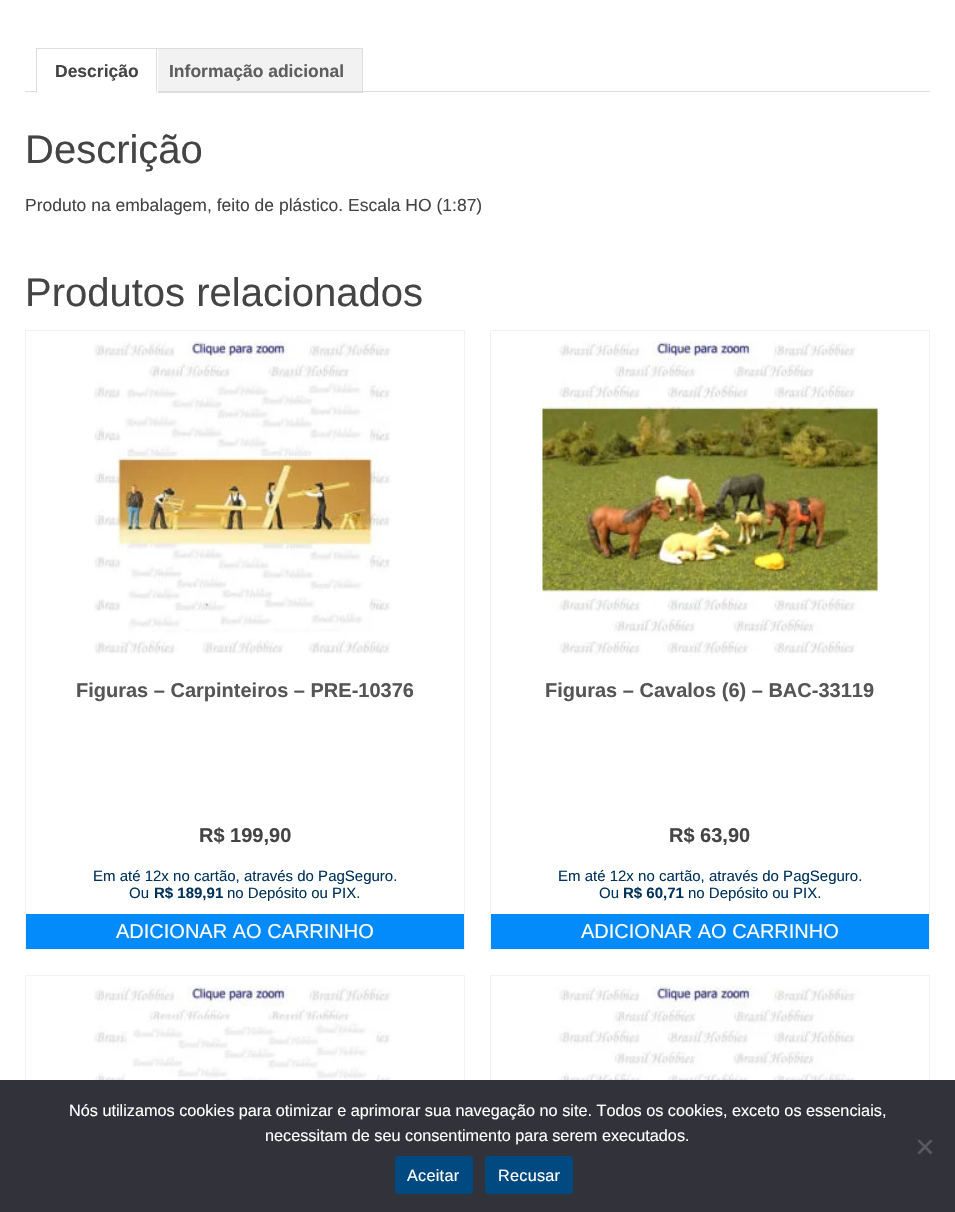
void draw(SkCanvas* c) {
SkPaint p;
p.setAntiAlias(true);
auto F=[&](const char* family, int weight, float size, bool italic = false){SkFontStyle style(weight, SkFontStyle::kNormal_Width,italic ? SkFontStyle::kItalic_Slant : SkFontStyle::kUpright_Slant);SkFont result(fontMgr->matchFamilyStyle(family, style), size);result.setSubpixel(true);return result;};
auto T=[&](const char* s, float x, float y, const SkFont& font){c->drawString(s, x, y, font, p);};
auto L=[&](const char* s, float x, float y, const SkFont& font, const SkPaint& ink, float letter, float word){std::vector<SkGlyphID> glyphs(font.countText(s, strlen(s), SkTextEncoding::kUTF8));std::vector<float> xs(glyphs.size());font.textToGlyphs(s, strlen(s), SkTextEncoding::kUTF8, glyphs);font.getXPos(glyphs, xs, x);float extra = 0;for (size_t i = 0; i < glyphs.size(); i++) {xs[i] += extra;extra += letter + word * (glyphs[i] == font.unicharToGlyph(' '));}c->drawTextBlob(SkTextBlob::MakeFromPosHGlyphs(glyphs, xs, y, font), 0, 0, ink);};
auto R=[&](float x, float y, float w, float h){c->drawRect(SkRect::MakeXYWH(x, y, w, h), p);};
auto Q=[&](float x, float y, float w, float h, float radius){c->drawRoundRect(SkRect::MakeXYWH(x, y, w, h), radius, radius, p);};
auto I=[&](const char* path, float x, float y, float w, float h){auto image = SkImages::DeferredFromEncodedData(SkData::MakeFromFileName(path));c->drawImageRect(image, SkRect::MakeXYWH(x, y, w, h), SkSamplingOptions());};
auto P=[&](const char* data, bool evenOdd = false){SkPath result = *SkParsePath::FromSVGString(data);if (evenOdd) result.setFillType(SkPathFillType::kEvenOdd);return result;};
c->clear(0xffffffff);
p.setColor(0xfff2f2f2);
R(158,49,204,42);
p.setStroke(true);
p.setStrokeWidth(1);
p.setColor(0xffdddddd);
c->drawRect(SkRect::MakeXYWH(150.5,48.5,212,44),p);
p.setStroke(false);
p.setColor(0xffdfdbdf);
R(25,91,905,1);
p.setColor(0xffffffff);
R(37,49,121,44);
p.setColor(0xffdddddd);
R(36,48,122,1);
R(156,48,1,45);
p.setColor(0xffffffff);
R(36,91,122,1);
p.setColor(0xffdddddd);
R(36,48,1,45);
auto f1 = F("Liberation Sans",700,17.5);
p.setColor(0xff444444);
T("Descrição",55,77,f1);
p.setColor(0xff5e5e5e);
T("Informação adicional",169,77,f1);
auto f2 = F("Liberation Sans",400,40);
p.setColor(0xff444444);
T("Descrição",25,163,f2);
auto f3 = F("Liberation Sans",400,17.5);
T("Produto na embalagem, feito de plástico. Escala HO (1:87)",25,211,f3);
T("Produtos relacionados",25,306,f2);
p.setStroke(true);
p.setColor(0xfff2f2f2);
c->drawRect(SkRect::MakeXYWH(25.5,330.5,439,619),p);
I("1.png",94,341,298,313);
auto f4 = F("Liberation Sans",700,20);
p.setStroke(false);
p.setColor(0xff555555);
T("Figuras – Carpinteiros – PRE-10376",76,697,f4);
p.setColor(0xff444444);
T("R$ 199,90",199,842,f4);
auto f5 = F("Liberation Sans",400,15);
p.setColor(0xff00335c);
T("Em até 12x no cartão, através do PagSeguro.",93,881,f5);
T("Ou",129,898,f5);
auto f6 = F("Liberation Sans",700,15);
T("R$ 189,91",154,898,f6);
T("no Depósito ou PIX.",227,898,f5);
p.setColor(0xff038afb);
R(26,914,438,35);
auto f7 = F("Liberation Sans",400,20);
p.setColor(0xffffffff);
T("ADICIONAR AO CARRINHO",116,938,f7);
p.setStroke(true);
p.setColor(0xfff2f2f2);
c->drawRect(SkRect::MakeXYWH(490.5,330.5,439,619),p);
I("2.png",542,341,336,315);
p.setStroke(false);
p.setColor(0xff555555);
T("Figuras – Cavalos (6) – BAC-33119",545,697,f4);
p.setColor(0xff444444);
T("R$ 63,90",669,842,f4);
p.setColor(0xff00335c);
T("Em até 12x no cartão, através do PagSeguro.",558,881,f5);
T("Ou",599,898,f5);
T("R$ 60,71",623,898,f6);
T("no Depósito ou PIX.",688,898,f5);
p.setColor(0xff038afb);
R(491,914,438,35);
p.setColor(0xffffffff);
T("ADICIONAR AO CARRINHO",581,938,f7);
p.setStroke(true);
p.setColor(0xfff2f2f2);
c->drawRect(SkRect::MakeXYWH(25.5,975.5,439,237),p);
I("3.png",94,986,298,94);
c->drawRect(SkRect::MakeXYWH(490.5,975.5,439,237),p);
I("4.png",553,986,321,94);
p.setStroke(false);
p.setColor(0xff32323a);
R(0,1080,955,132);
auto f8 = F("Liberation Sans",400,16.25);
p.setColor(0xffffffff);
T("Nós utilizamos cookies para otimizar e aprimorar sua navegação no site. Todos os cookies, exceto os essenciais,",69,1116,f8);
T("necessitam de seu consentimento para serem executados.",265,1141,f8);
p.setColor(0xff59595d);
c->drawPath(P("M930.5 1139.5l2 1.5l-13 13.5l-2-2z"),p);
c->drawPath(P("M917.5 1141l2-1.5l13 13l-2 2z"),p);
p.setColor(0xff014a81);
Q(395,1156,78,38,4);
p.setColor(0xffffffff);
L("Aceitar",407,1181,f8,p,.25,0);
p.setColor(0xff014a81);
Q(485,1156,88,38,4);
p.setColor(0xffffffff);
L("Recusar",498,1181,f8,p,.25,0);
}
